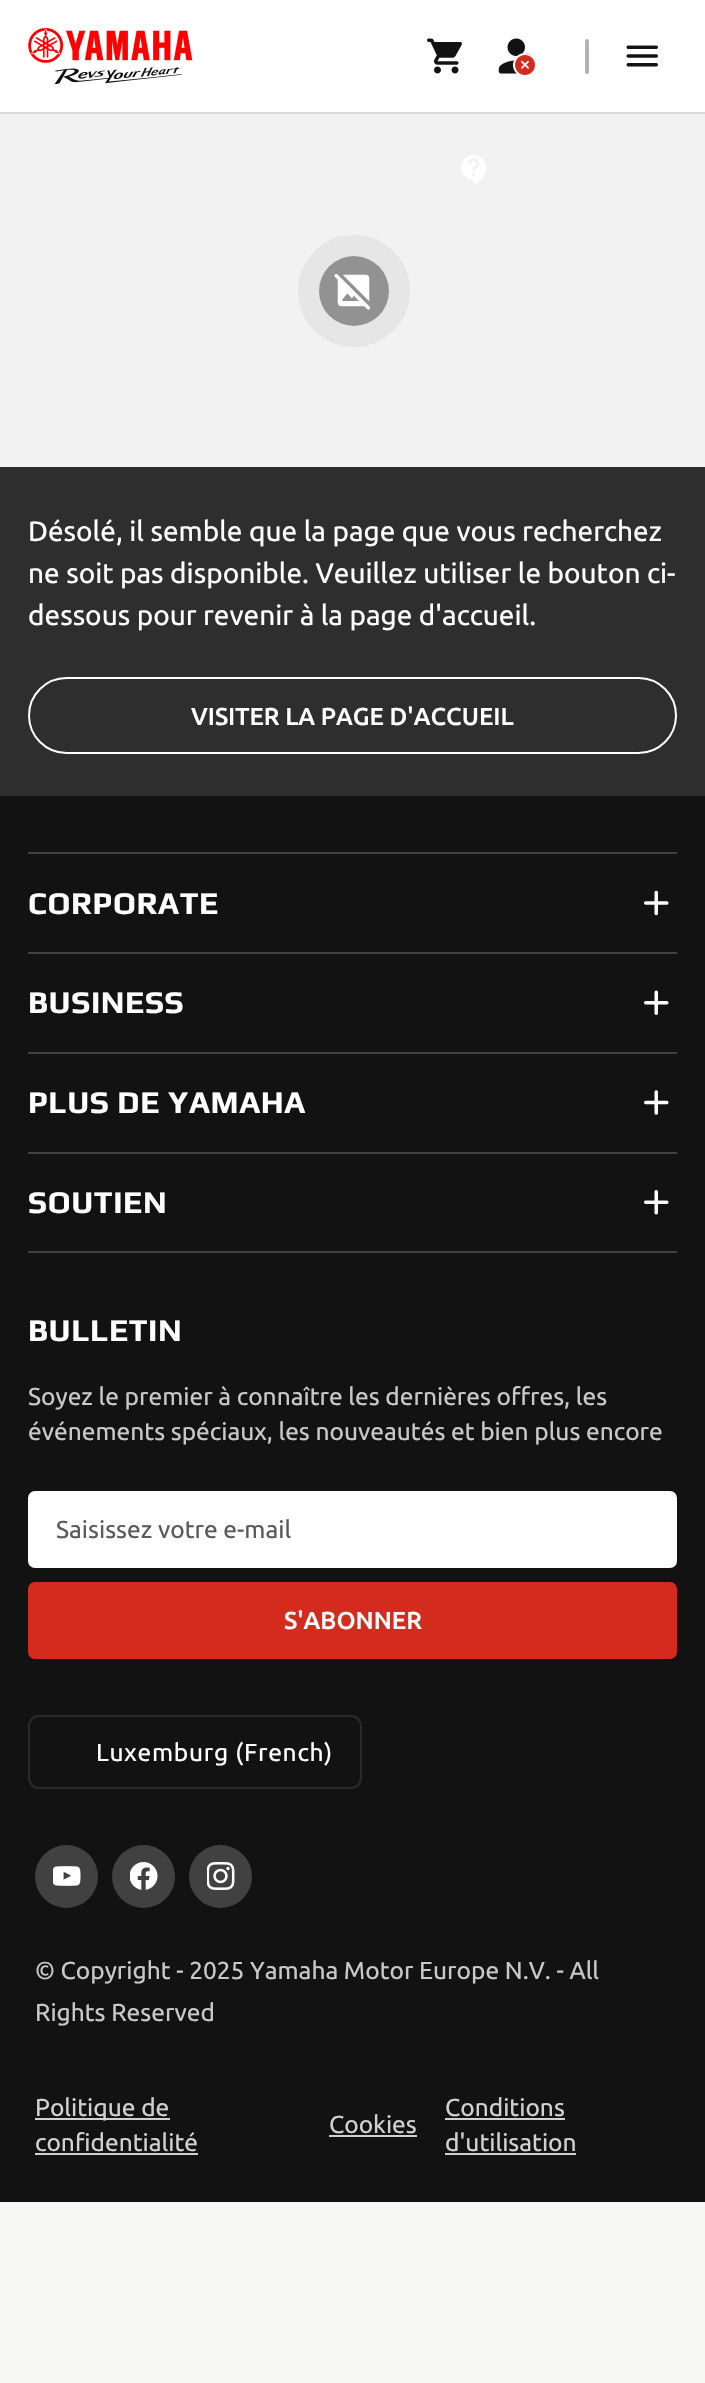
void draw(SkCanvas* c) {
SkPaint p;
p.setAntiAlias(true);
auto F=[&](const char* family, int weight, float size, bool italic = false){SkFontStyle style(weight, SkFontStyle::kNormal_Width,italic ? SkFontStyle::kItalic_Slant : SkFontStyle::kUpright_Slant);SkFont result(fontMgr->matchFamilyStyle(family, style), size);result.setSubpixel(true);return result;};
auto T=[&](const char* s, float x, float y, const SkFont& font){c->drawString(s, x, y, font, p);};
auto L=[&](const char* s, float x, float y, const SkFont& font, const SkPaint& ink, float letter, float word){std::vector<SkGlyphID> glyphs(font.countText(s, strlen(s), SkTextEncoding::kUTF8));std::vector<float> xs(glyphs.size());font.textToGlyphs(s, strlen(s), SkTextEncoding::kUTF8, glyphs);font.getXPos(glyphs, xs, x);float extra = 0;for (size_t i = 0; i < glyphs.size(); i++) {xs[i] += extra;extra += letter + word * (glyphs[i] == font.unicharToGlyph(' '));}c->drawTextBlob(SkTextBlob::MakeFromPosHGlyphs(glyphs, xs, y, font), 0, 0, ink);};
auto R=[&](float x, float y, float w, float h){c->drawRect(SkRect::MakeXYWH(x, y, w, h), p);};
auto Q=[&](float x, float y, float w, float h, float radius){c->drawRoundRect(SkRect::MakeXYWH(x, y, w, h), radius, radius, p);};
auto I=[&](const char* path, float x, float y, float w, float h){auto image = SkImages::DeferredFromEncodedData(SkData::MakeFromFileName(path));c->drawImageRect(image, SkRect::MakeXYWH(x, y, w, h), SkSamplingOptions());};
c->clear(0xfff7f7f5);
p.setColor(0xffffffff);
R(0,0,705,112);
p.setColor(0xffdbdbdb);
R(0,112,705,2);
I("1.png",28,28,165,57);
I("2.png",427,38,35,36);
I("3.png",498,38,38,37);
p.setColor(0xffb3b3b3);
Q(585,39,4,35,2);
I("4.png",626,45,32,22);
p.setColor(0xfff2f2f2);
R(0,114,705,353);
p.setStroke(true);
p.setStrokeWidth(21);
p.setColor(0xffe6e6e6);
c->drawCircle(354,291,45.5,p);
p.setStroke(false);
p.setColor(0xff929292);
c->drawCircle(354,291,35,p);
I("5.png",334,274,36,36);
I("6.png",461,155,25,29);
p.setColor(0xff2e2e2e);
R(0,467,705,329);
auto f1 = F("Ubuntu",400,28);
p.setColor(0xffffffff);
T("Désolé, il semble que la page que vous recherchez",28,541,f1);
T("ne soit pas disponible. Veuillez utiliser le bouton ci-",28,583,f1);
T("dessous pour revenir à la page d'accueil.",28,625,f1);
p.setStroke(true);
p.setStrokeWidth(2);
c->drawRoundRect(SkRect::MakeXYWH(29,678,647,75),37.5,37.5,p);
auto f2 = F("Ubuntu",500,24.5);
p.setStroke(false);
T("VISITER LA PAGE D'ACCUEIL",191,725,f2);
p.setColor(0xff121212);
R(0,796,705,1406);
p.setColor(0xff414141);
R(28,852,649,2);
auto f3 = F("Play",700,31.5);
p.setColor(0xffffffff);
L("CORPORATE",28,914,f3,p,.6,0);
I("7.png",644,890,25,26);
p.setColor(0xff414141);
R(28,952,649,2);
p.setColor(0xffffffff);
L("BUSINESS",28,1013,f3,p,.6,0);
I("8.png",644,990,25,25);
p.setColor(0xff414141);
R(28,1052,649,2);
p.setColor(0xffffffff);
L("PLUS DE YAMAHA",28,1113,f3,p,.6,0);
I("9.png",644,1090,25,25);
p.setColor(0xff414141);
R(28,1152,649,2);
R(28,1251,649,2);
p.setColor(0xffffffff);
L("SOUTIEN",28,1213,f3,p,.6,0);
I("10.png",644,1190,25,25);
L("BULLETIN",28,1341,f3,p,.6,0);
auto f4 = F("Ubuntu",400,24.5);
p.setColor(0xffc8c8c8);
T("Soyez le premier à connaître les dernières offres, les",28,1405,f4);
T("événements spéciaux, les nouveautés et bien plus encore",28,1440,f4);
p.setColor(0xffffffff);
Q(28,1491,649,77,7);
p.setColor(0xff5b5b5b);
T("Saisissez votre e-mail",56,1538,f4);
p.setColor(0xffd52b1e);
Q(28,1582,649,77,7);
p.setColor(0xffffffff);
T("S'ABONNER",284,1629,f2);
p.setStroke(true);
p.setColor(0xff2a2a2a);
c->drawRoundRect(SkRect::MakeXYWH(29,1716,332,72),10,10,p);
p.setStroke(false);
p.setColor(0xffffffff);
L("Luxemburg (French)",96,1761,f4,p,.75,0);
p.setColor(0xff414141);
c->drawCircle(66.5,1876.5,31.5,p);
I("11.png",53,1866,28,20);
c->drawCircle(143.5,1876.5,31.5,p);
I("12.png",130,1862,28,28);
c->drawCircle(220.5,1876.5,31.5,p);
I("13.png",207,1862,28,28);
p.setColor(0xffc8c8c8);
T("© Copyright - 2025 Yamaha Motor Europe N.V. - All",35,1979,f4);
T("Rights Reserved",35,2021,f4);
p.setColor(0xffd0d0d0);
R(35,2118,135,2);
T("Politique de",35,2116,f4);
T("confidentialité",35,2151,f4);
R(35,2153,163,2);
T("Cookies",329,2133,f4);
R(329,2135,88,2);
T("Conditions",445,2116,f4);
R(445,2118,120,2);
T("d'utilisation",445,2151,f4);
R(445,2153,131,2);
}
